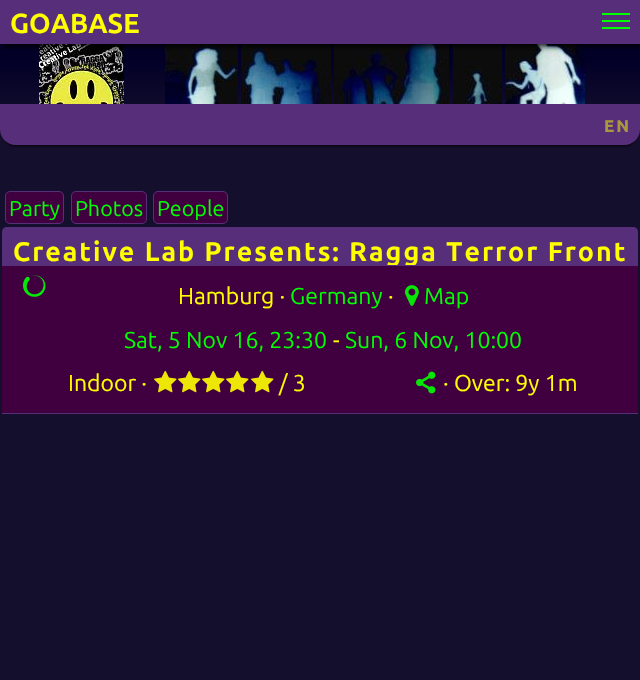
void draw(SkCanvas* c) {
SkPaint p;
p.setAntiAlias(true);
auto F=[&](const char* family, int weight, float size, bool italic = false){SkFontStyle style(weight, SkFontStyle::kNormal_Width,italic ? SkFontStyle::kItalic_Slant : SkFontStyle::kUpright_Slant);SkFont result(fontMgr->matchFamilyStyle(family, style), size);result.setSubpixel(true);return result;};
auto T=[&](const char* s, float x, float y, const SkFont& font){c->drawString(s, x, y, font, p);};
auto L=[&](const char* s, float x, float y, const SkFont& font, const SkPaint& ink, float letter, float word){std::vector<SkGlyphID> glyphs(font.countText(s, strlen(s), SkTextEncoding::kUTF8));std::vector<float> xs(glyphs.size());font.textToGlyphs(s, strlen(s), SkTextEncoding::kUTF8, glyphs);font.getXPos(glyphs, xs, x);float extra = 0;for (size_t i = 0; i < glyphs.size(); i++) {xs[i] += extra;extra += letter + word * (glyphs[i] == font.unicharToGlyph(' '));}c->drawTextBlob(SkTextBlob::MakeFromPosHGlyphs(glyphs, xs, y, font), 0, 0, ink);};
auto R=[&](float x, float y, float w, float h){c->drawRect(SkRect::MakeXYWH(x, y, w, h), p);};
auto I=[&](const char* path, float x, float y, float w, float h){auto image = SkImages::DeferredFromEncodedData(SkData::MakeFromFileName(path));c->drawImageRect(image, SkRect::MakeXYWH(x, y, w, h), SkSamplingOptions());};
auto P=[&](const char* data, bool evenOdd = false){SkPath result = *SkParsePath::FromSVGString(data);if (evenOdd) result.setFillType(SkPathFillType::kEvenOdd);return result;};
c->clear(0xff150f2e);
{
const SkColor colors[] = {0xff020027,0xff150f2e};
const float stops[] = {.48,1};
const SkPoint ends[] = {{320,0}, {320,124}};
p.setShader(SkGradientShader::MakeLinear(ends, colors, stops, 2, SkTileMode::kClamp));
p.setAlpha(255);
}
R(0,44,640,60);
I("1.png",39,44,85,60);
I("2.png",165,44,73,60);
I("3.png",241,44,90,60);
I("4.png",334,44,115,60);
I("5.png",453,44,49,60);
I("6.png",505,44,80,60);
p.setShader(nullptr);
p.setColor(0xcc000000);
p.setMaskFilter(SkMaskFilter::MakeBlur(kNormal_SkBlurStyle, 2.5));
c->drawRect(SkRect::MakeXYWH(3,3,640,44),p);
p.setMaskFilter(nullptr);
p.setColor(0xff562e7a);
R(0,0,640,44);
auto f1 = F("Ubuntu",700,27.5);
p.setColor(0xffffff00);
T("GOABASE",10,33,f1);
p.setColor(0xff00ff00);
R(602,20,28,2);
R(602,13,28,2);
R(602,27,28,2);
p.setColor(0x80000000);
p.setMaskFilter(SkMaskFilter::MakeBlur(kNormal_SkBlurStyle, 1));
c->drawRoundRect(SkRect::MakeXYWH(2,110,636,37),14,14,p);
p.setMaskFilter(nullptr);
p.setColor(0xff562e7a);
c->drawPath(P("M0 104h640v25c0 9-7 16-16 16h-608c-9 0-16-7-16-16z"),p);
auto f2 = F("Ubuntu",800,17);
p.setColor(0xffab973d);
L("EN",604,132,f2,p,2,0);
p.setColor(0xff400040);
c->drawRoundRect(SkRect::MakeXYWH(5.5,191.5,58,32),4.5,4.5,p);
p.setStroke(true);
p.setStrokeWidth(1);
p.setColor(0xff562e7a);
c->drawRoundRect(SkRect::MakeXYWH(5.5,191.5,58,32),4.5,4.5,p);
auto f3 = F("Ubuntu",400,21.5);
p.setStroke(false);
p.setColor(0xff00ff00);
T("Party",9,216,f3);
p.setColor(0xff400040);
c->drawRoundRect(SkRect::MakeXYWH(71.5,191.5,75,32),4.5,4.5,p);
p.setStroke(true);
p.setColor(0xff562e7a);
c->drawRoundRect(SkRect::MakeXYWH(71.5,191.5,75,32),4.5,4.5,p);
p.setStroke(false);
p.setColor(0xff00ff00);
T("Photos",75,216,f3);
p.setColor(0xff400040);
c->drawRoundRect(SkRect::MakeXYWH(153.5,191.5,74,32),4.5,4.5,p);
p.setStroke(true);
p.setColor(0xff562e7a);
c->drawRoundRect(SkRect::MakeXYWH(153.5,191.5,74,32),4.5,4.5,p);
p.setStroke(false);
p.setColor(0xff00ff00);
T("People",157,216,f3);
p.setColor(0xff562e7a);
c->drawPath(P("M7 227h626c3 0 5 2 5 5v33h-636v-33c0-3 2-5 5-5z"),p);
c->save();
c->clipPath(P("M7 227h626c3 0 5 2 5 5v33h-636v-33c0-3 2-5 5-5z"),true);
auto f4 = F("Ubuntu",700,26.9);
p.setColor(0xffffff00);
L("Creative Lab Presents: Ragga Terror Front",13,261,f4,p,2,0);
c->restore();
p.setColor(0xff400040);
R(2,266,636,147);
p.setColor(0xff562e7a);
R(2,265,636,1);
R(2,413,636,1);
I("7.png",23,275,23,22);
auto f5 = F("Ubuntu",400,23);
p.setColor(0xffffff00);
T("Hamburg ·",178,304,f5);
p.setColor(0xff00ff00);
T("Germany",290,304,f5);
p.setColor(0xffffff00);
T("·",388,304,f5);
I("8.png",405,285,14,21);
p.setColor(0xff00ff00);
T("Map",424,304,f5);
T("Sat, 5 Nov 16, 23:30",124,348,f5);
p.setColor(0xffffff00);
T("-",333,348,f5);
p.setColor(0xff00ff00);
T("Sun, 6 Nov, 10:00",345,348,f5);
p.setColor(0xffffff00);
T("Indoor ·",68,391,f5);
I("9.png",154,370,23,23);
I("9.png",178,370,23,23);
I("9.png",202,370,23,23);
I("9.png",226,370,23,23);
I("9.png",251,370,23,23);
T("/ 3",279,391,f5);
I("10.png",416,371,20,23);
T("· Over: 9y 1m",443,391,f5);
}
